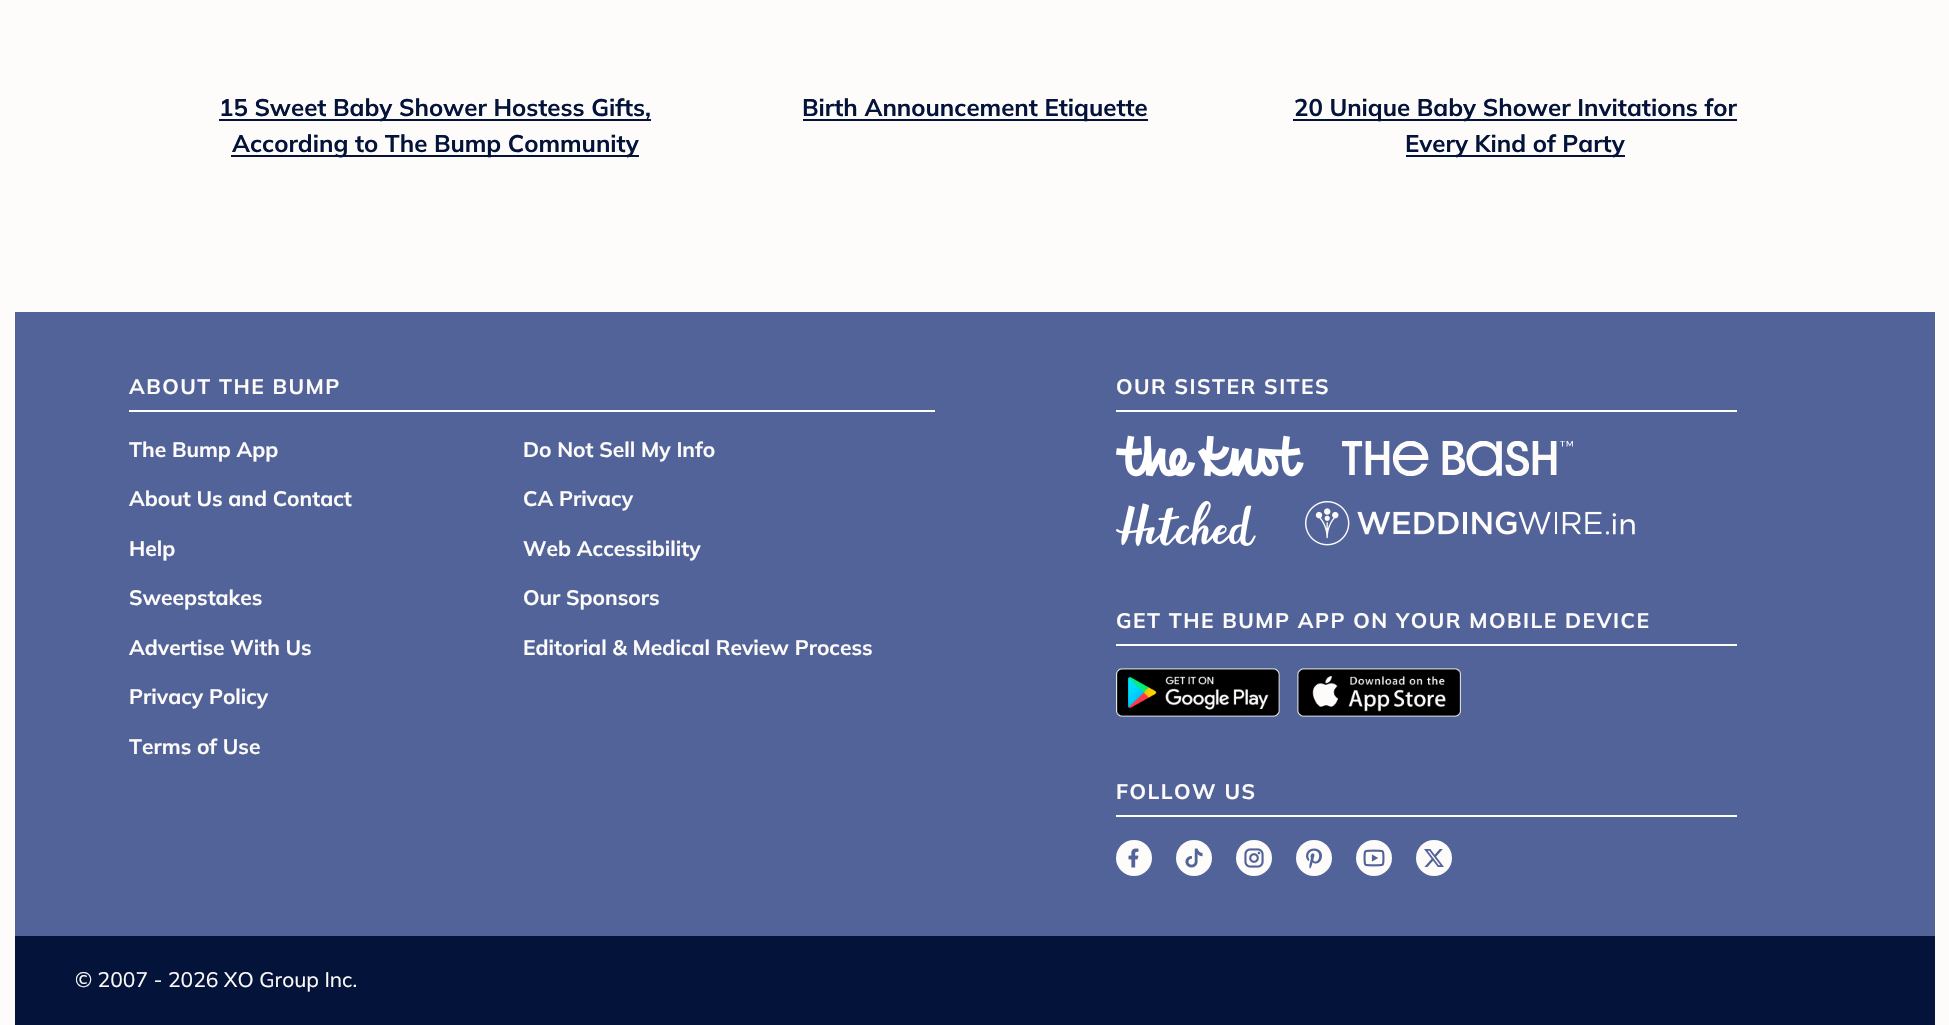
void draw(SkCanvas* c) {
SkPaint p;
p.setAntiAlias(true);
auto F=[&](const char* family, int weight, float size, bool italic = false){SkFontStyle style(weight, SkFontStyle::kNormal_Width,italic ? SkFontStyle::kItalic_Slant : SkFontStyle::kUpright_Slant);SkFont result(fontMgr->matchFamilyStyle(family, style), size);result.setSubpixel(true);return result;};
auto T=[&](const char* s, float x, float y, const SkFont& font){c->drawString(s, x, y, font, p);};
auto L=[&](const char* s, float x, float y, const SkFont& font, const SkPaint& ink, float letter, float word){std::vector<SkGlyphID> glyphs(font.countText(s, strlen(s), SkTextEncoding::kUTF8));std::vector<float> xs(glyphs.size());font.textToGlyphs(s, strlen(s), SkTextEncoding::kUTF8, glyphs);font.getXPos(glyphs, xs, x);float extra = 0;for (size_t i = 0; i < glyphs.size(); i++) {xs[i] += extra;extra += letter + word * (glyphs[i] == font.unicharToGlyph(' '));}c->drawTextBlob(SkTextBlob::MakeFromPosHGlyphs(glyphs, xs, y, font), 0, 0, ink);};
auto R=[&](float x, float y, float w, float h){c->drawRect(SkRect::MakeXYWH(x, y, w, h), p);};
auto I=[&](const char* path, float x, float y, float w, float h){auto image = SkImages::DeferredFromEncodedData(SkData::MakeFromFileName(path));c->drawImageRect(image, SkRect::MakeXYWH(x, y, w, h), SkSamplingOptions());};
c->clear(0xfffdfcfa);
p.setColor(0xff04133a);
R(219,119,432,2);
auto f1 = F("Mulish",200,24);
T("15 Sweet Baby Shower Hostess Gifts,",219,116,f1);
R(231,155,408,2);
T("According to The Bump Community",232,152,f1);
R(803,119,345,2);
T("Birth Announcement Etiquette",802,116,f1);
R(1293,119,444,2);
T("20 Unique Baby Shower Invitations for",1294,116,f1);
R(1406,155,219,2);
T("Every Kind of Party",1405,152,f1);
p.setColor(0xff526399);
R(15,312,1920,624);
auto f2 = F("Mulish",200,21);
p.setColor(0xfffdfcfa);
L("ABOUT THE BUMP",129,394,f2,p,1.5,0);
R(129,410,806,2);
T("The Bump App",129,457,f2);
T("Do Not Sell My Info",523,457,f2);
T("About Us and Contact",129,506,f2);
T("CA Privacy",523,506,f2);
T("Help",129,556,f2);
T("Web Accessibility",523,556,f2);
T("Sweepstakes",129,605,f2);
T("Our Sponsors",523,605,f2);
T("Advertise With Us",129,655,f2);
T("Editorial & Medical Review Process",523,655,f2);
T("Privacy Policy",129,704,f2);
T("Terms of Use",129,754,f2);
L("OUR SISTER SITES",1116,394,f2,p,1.5,0);
R(1116,410,621,2);
I("1.png",1116,435,188,42);
I("2.png",1342,441,231,35);
I("3.png",1116,501,140,45);
I("4.png",1305,501,330,45);
L("GET THE BUMP APP ON YOUR MOBILE DEVICE",1116,628,f2,p,1.5,0);
R(1116,644,621,2);
I("5.png",1116,668,164,49);
I("6.png",1297,668,164,49);
L("FOLLOW US",1116,799,f2,p,1.5,0);
R(1116,815,621,2);
c->drawCircle(1134,858,18,p);
I("7.png",1128,848,11,20);
c->drawCircle(1194,858,18,p);
I("8.png",1185,848,18,20);
c->drawCircle(1254,858,18,p);
I("9.png",1244,848,20,20);
c->drawCircle(1314,858,18,p);
I("10.png",1306,848,16,21);
c->drawCircle(1374,858,18,p);
I("11.png",1363,849,22,18);
c->drawCircle(1434,858,18,p);
I("12.png",1424,849,20,18);
p.setColor(0xff04133a);
R(15,936,1920,89);
auto f3 = F("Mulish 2",200,21);
p.setColor(0xfffdfcfa);
T("© 2007 - 2026 XO Group Inc.",75,987,f3);
}
